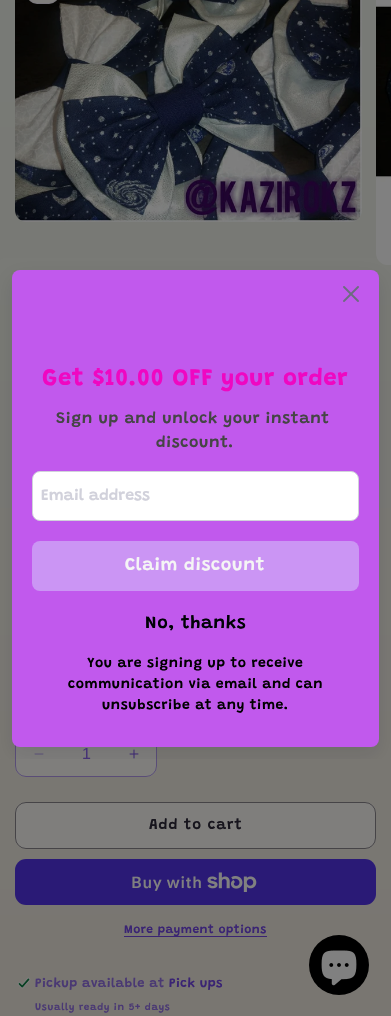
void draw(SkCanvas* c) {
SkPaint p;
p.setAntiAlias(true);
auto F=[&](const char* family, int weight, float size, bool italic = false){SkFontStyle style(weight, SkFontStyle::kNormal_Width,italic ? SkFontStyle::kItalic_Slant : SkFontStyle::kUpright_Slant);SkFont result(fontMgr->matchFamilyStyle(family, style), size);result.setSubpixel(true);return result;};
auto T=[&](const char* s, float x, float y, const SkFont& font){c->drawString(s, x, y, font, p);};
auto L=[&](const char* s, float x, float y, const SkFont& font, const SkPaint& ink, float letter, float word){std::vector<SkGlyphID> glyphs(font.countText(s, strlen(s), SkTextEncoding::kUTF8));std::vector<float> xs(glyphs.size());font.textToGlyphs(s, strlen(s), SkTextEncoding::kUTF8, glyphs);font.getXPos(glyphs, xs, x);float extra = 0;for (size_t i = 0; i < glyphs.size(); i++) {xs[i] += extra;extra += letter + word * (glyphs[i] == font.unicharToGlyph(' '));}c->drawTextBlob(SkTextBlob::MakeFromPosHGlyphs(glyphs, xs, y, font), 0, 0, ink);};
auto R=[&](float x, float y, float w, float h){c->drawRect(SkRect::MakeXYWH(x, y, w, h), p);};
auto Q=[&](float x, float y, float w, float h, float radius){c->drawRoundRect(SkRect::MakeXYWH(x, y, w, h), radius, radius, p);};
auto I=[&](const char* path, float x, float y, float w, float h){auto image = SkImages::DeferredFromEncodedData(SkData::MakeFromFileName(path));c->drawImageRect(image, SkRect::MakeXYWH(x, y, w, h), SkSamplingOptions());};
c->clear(0xffffffff);
{
const SkColor colors[] = {0xff787a76,0xff797671};
const float stops[] = {0,1};
const SkPoint ends[] = {{195,0}, {196,1016}};
p.setShader(SkGradientShader::MakeLinear(ends, colors, stops, 2, SkTileMode::kClamp));
p.setAlpha(255);
}
R(0,0,391,1016);
I("3.png",376,0,15,265);
p.setShader(nullptr);
p.setColor(0xff7f7e7c);
Q(15,730,142,47,11);
I("4.png",34,753,10,2);
I("5.png",129,749,10,10);
p.setStroke(true);
p.setStrokeWidth(1);
p.setColor(0x8c3a2473);
c->drawRoundRect(SkRect::MakeXYWH(15.5,730.5,141,46),10.5,10.5,p);
c->save();
c->clipRect(SkRect::MakeXYWH(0,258,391,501));
p.setStroke(false);
p.setColor(0x1a121127);
p.setMaskFilter(SkMaskFilter::MakeBlur(kNormal_SkBlurStyle, 10));
c->drawRoundRect(SkRect::MakeXYWH(12,278,367,477),8,8,p);
p.setMaskFilter(nullptr);
c->restore();
p.setColor(0xffc159ed);
Q(12,270,367,477,8);
I("1.png",343,286,16,16);
auto f1 = F("Grandstander",700,24);
p.setColor(0xffef07c2);
L("Get $10.00 OFF your order",42,385,f1,p,.6,0);
auto f2 = F("Grandstander",600,16);
p.setColor(0xff454545);
L("Sign up and unlock your instant",56,423,f2,p,.6,0);
L("discount.",156,447,f2,p,.6,0);
p.setColor(0xffffffff);
c->drawRoundRect(SkRect::MakeXYWH(32.5,471.5,326,49),7.5,7.5,p);
p.setStroke(true);
p.setColor(0xffd1d1db);
c->drawRoundRect(SkRect::MakeXYWH(32.5,471.5,326,49),7.5,7.5,p);
p.setStroke(false);
T("Email address",41,500,f2);
p.setColor(0xffcb95f4);
Q(32,541,327,50,8);
auto f3 = F("Grandstander",600,18);
p.setColor(0xfff5f5f5);
L("Claim discount",125,570,f3,p,.6,0);
p.setColor(0xff000206);
L("No, thanks",145,628,f3,p,.6,0);
auto f4 = F("Grandstander",600,14);
p.setColor(0xff000000);
L("You are signing up to receive",87,667,f4,p,.6,0);
L("communication via email and can",68,688,f4,p,.6,0);
L("unsubscribe at any time.",102,709,f4,p,.6,0);
I("2.png",15,0,347,222);
p.setColor(0xff7f7e7c);
Q(27,-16,32,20,16);
p.setStroke(true);
p.setColor(0x1a3a2473);
c->drawRoundRect(SkRect::MakeXYWH(27.5,-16.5,31,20),15.5,15.5,p);
auto f5 = F("Liberation Sans",400,16);
p.setStroke(false);
p.setColor(0xff453275);
T("1",82,759,f5);
p.setColor(0xff7f7e7c);
Q(15,802,361,47,11);
p.setStroke(true);
p.setColor(0xff464447);
c->drawRoundRect(SkRect::MakeXYWH(15.5,802.5,360,46),10.5,10.5,p);
auto f6 = F("Grandstander",600,15);
p.setStroke(false);
p.setColor(0xff17151d);
L("Add to cart",149,829,f6,p,1,0);
p.setColor(0xff2a1a76);
Q(15,859,361,46,11);
auto f7 = F("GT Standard",600,16);
p.setColor(0xff808080);
L("Buy with",131,888,f7,p,.6,0);
I("6.png",207,872,50,20);
p.setColor(0xff3a2473);
R(124,936,143,1);
auto f8 = F("Grandstander",600,12);
L("More payment options",124,933,f8,p,.5,0);
I("7.png",17,977,14,12);
auto f9 = F("Grandstander",600,13);
p.setColor(0xff4a3973);
L("Pickup available at",35,987,f9,p,.4,0);
p.setColor(0xff3a2473);
L("Pick ups",169,987,f9,p,.4,0);
auto f10 = F("Grandstander",600,10);
p.setColor(0xff4a3973);
L("Usually ready in 5+ days",35,1010,f10,p,.7,0);
p.setColor(0xff000000);
c->drawCircle(339,965,30,p);
I("8.png",321,950,36,36);
}
